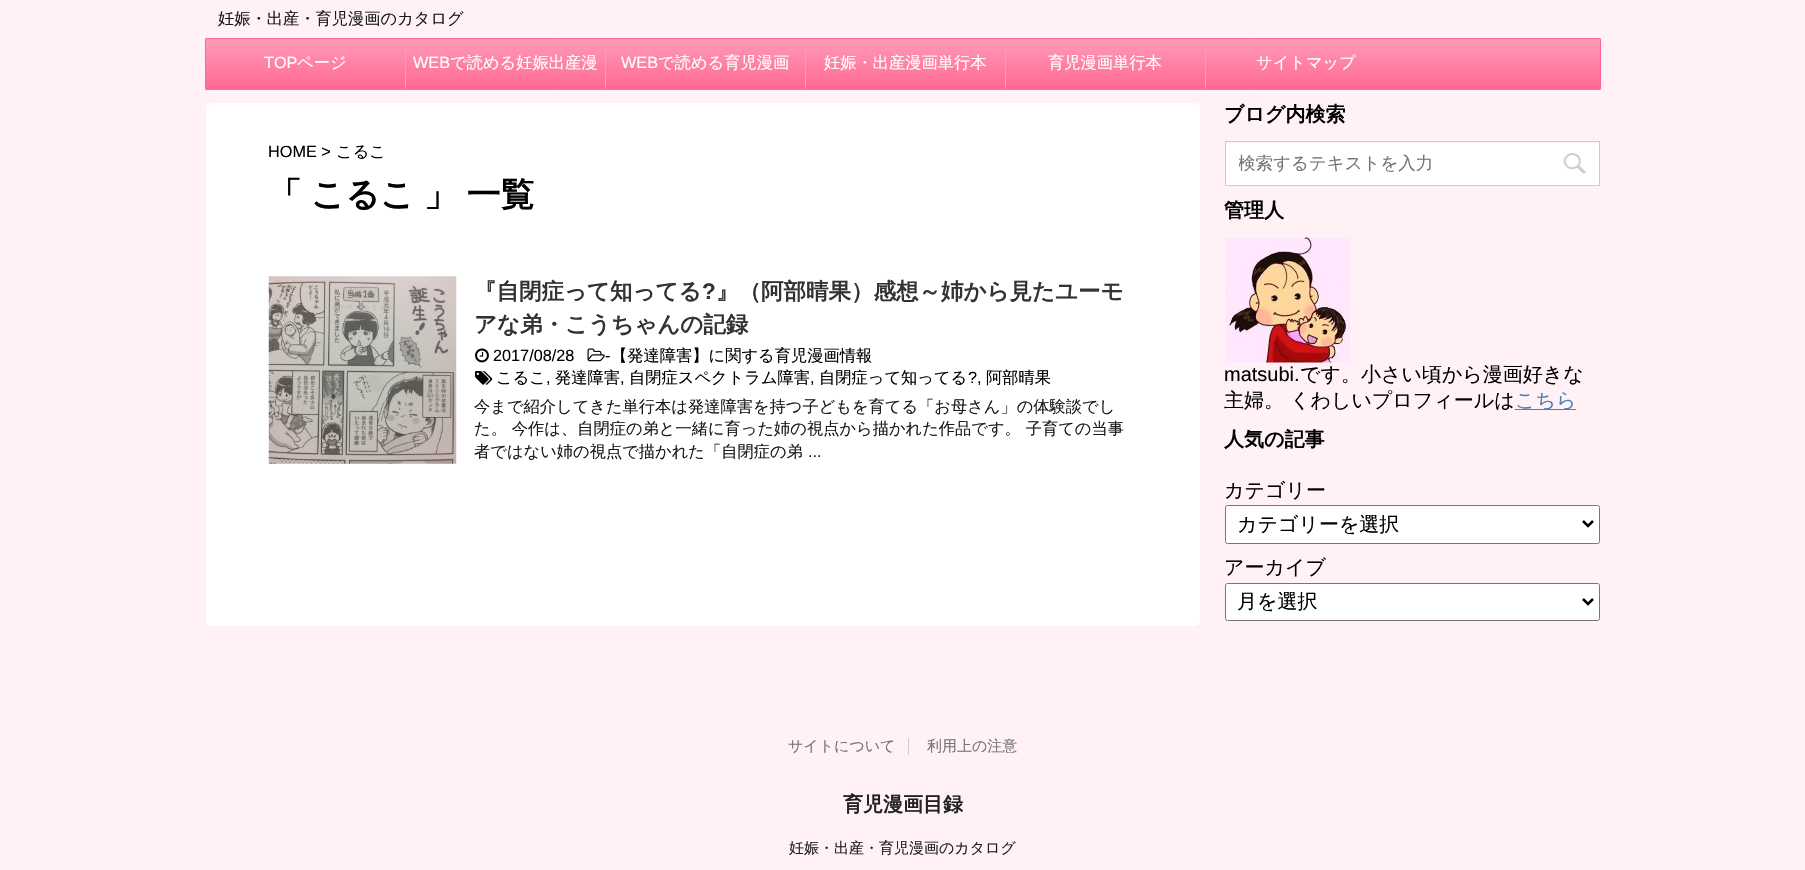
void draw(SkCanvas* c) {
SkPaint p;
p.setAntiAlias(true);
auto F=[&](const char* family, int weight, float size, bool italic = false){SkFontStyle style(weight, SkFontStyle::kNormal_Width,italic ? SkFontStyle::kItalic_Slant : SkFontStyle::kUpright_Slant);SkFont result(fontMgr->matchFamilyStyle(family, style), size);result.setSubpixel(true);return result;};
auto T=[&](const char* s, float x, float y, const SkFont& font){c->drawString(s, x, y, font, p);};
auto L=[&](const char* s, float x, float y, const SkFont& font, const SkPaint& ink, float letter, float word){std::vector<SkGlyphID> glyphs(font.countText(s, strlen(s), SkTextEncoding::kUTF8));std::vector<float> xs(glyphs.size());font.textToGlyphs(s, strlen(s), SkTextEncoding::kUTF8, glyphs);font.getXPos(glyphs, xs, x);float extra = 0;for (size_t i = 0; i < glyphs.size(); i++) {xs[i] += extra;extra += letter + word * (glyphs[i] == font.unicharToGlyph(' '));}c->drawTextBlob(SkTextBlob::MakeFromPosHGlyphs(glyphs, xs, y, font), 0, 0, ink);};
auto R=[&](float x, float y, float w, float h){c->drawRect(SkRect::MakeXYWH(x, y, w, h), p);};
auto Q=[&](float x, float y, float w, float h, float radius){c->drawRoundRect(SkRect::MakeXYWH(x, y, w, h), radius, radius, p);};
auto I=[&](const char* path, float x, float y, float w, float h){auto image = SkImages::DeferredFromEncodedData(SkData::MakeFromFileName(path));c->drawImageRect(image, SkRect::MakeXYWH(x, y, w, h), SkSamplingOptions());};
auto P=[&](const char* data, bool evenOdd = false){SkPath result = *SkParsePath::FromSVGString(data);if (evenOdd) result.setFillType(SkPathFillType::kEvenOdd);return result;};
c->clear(0xfffff1f5);
auto f1 = F("WenQuanYi Zen Hei",500,16.25);
p.setColor(0xff1a1a1a);
T("妊娠・出産・育児漫画のカタログ",218,24,f1);
{
const SkColor colors[] = {0xffff9bb7,0xffff6893};
const float stops[] = {0,1};
const SkPoint ends[] = {{903,39}, {903,89}};
p.setShader(SkGradientShader::MakeLinear(ends, colors, stops, 2, SkTileMode::kClamp));
p.setAlpha(255);
}
R(206,39,1394,50);
p.setStroke(true);
p.setStrokeWidth(1);
p.setShader(nullptr);
p.setColor(0xffff6893);
c->drawRoundRect(SkRect::MakeXYWH(205.5,38.5,1395,51),.5,.5,p);
p.setStroke(false);
p.setColor(0xffff9bb7);
R(405,39,1,50);
auto f2 = F("Liberation Sans",400,16.25);
p.setColor(0xffffffff);
T("TOP",264,68,f2);
T("ページ",297,68,f1);
p.setColor(0xffff9bb7);
R(605,39,1,50);
p.setColor(0xffffffff);
T("WEB",413,68,f2);
T("で読める妊娠出産漫",450,68,f1);
p.setColor(0xffff9bb7);
R(805,39,1,50);
p.setColor(0xffffffff);
T("WEB",621,68,f2);
T("で読める育児漫画",658,68,f1);
p.setColor(0xffff9bb7);
R(1005,39,1,50);
p.setColor(0xffffffff);
T("妊娠・出産漫画単行本",824,68,f1);
p.setColor(0xffff9bb7);
R(1205,39,1,50);
p.setColor(0xffffffff);
T("育児漫画単行本",1048,68,f1);
T("サイトマップ",1256,68,f1);
Q(206,103,994,523,5);
p.setColor(0xff000000);
T("HOME >",268,157,f2);
T("こるこ",336,157,f1);
auto f3 = F("WenQuanYi Zen Hei",700,33.75);
L("「 こるこ",268,206,f3,p,0,-1);
L("」 一覧",424,206,f3,p,0,-1);
I("1.png",268,276,189,188);
auto f4 = F("WenQuanYi Zen Hei",700,22.5);
p.setColor(0xff333333);
T("『自閉症って知ってる",474,299,f4);
auto f5 = F("Liberation Sans",700,22.5);
T("?",702,299,f5);
T("』（阿部晴果）感想～姉から見たユーモ",716,299,f4);
T("アな弟・こうちゃんの記録",474,332,f4);
I("2.png",475,348,14,15);
I("3.png",587,348,18,14);
p.setColor(0xff000000);
T("-",605,361,f2);
T("【発達障害】に関する育児漫画情報",611,361,f1);
I("4.png",475,371,18,14);
T("こるこ",496,383,f1);
T(",",546,383,f2);
T("発達障害",555,383,f1);
T(",",620,383,f2);
T("自閉症スペクトラム障害",629,383,f1);
T(",",810,383,f2);
T("自閉症って知ってる",819,383,f1);
T("?,",968,383,f2);
T("阿部晴果",986,383,f1);
T("2017/08/28",493,361,f2);
p.setColor(0xff1a1a1a);
T("今まで紹介してきた単行本は発達障害を持つ子どもを育てる「お母さん」の体験談でし",474,412,f1);
T("た。 今作は、自閉症の弟と一緒に育った姉の視点から描かれた作品です。 子育ての当事",474,434,f1);
T("者ではない姉の視点で描かれた「自閉症の弟",474,457,f1);
T("...",808,457,f2);
auto f6 = F("WenQuanYi Zen Hei",700,20);
p.setColor(0xff000000);
T("ブログ内検索",1224,121,f6);
p.setStroke(true);
p.setColor(0xffcccccc);
c->drawRect(SkRect::MakeXYWH(1225.5,141.5,374,44),p);
p.setStroke(false);
p.setColor(0xffffffff);
R(1226,143,373,42);
c->save();
c->clipRect(SkRect::MakeXYWH(1239,154,279,22));
auto f7 = F("WenQuanYi Zen Hei",500,17.5);
p.setColor(0xff757575);
T("検索するテキストを入力",1238,169,f7);
c->restore();
I("5.png",1563,153,23,21);
p.setColor(0xff000000);
T("管理人",1224,217,f6);
I("6.png",1225,237,125,126);
auto f8 = F("Liberation Sans",400,20);
T("matsubi.",1224,381,f8);
auto f9 = F("WenQuanYi Zen Hei",500,20);
T("です。小さい頃から漫画好きな",1300,381,f9);
T("主婦。 くわしいプロフィールは",1224,407,f9);
p.setColor(0xff4682b4);
R(1515,409,61,1);
T("こちら",1515,407,f9);
p.setColor(0xff000000);
T("人気の記事",1224,446,f6);
T("カテゴリー",1224,497,f9);
p.setColor(0xffffffff);
c->drawRoundRect(SkRect::MakeXYWH(1225.5,505.5,374,38),2,2,p);
p.setStroke(true);
p.setColor(0xff767676);
c->drawRoundRect(SkRect::MakeXYWH(1225.5,505.5,374,38),2,2,p);
p.setStrokeWidth(2.5);
p.setColor(0xff000000);
c->drawPath(P("M1583 521l5 5l5-5"),p);
p.setStroke(false);
T("カテゴリーを選択",1237,531,f9);
T("アーカイブ",1224,574,f9);
p.setColor(0xffffffff);
c->drawRoundRect(SkRect::MakeXYWH(1225.5,583.5,374,37),2,2,p);
p.setStroke(true);
p.setStrokeWidth(1);
p.setColor(0xff767676);
c->drawRoundRect(SkRect::MakeXYWH(1225.5,583.5,374,37),2,2,p);
p.setStrokeWidth(2.5);
p.setColor(0xff000000);
c->drawPath(P("M1583 599l5 5l5-5"),p);
p.setStroke(false);
T("月を選択",1237,608,f9);
auto f10 = F("WenQuanYi Zen Hei",500,15);
p.setColor(0xff757575);
T("サイトについて",788,751,f10);
p.setColor(0xffcccccc);
R(908,738,1,17);
p.setColor(0xff757575);
T("利用上の注意",927,751,f10);
p.setColor(0xff212121);
T("育児漫画目録",843,811,f6);
T("妊娠・出産・育児漫画のカタログ",789,853,f10);
}
